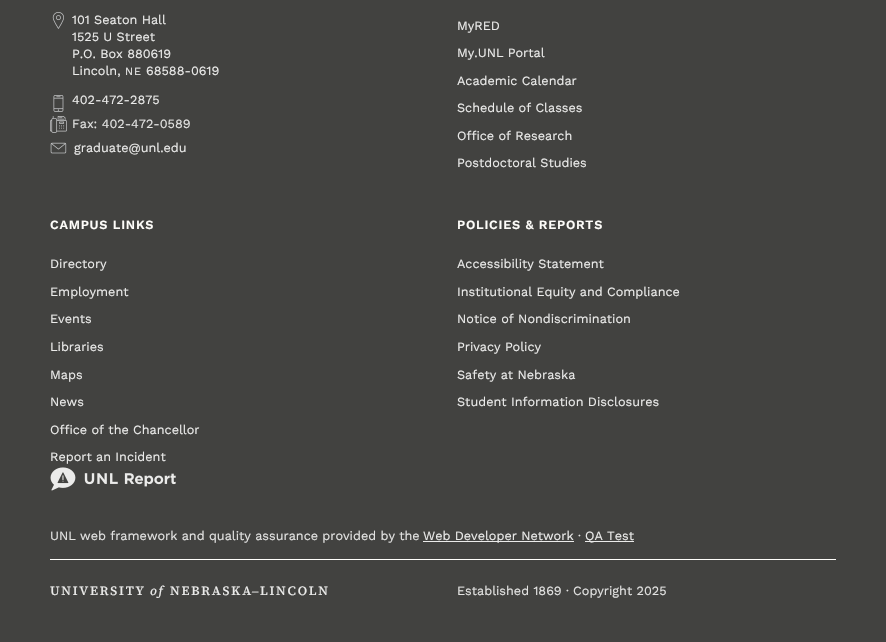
void draw(SkCanvas* c) {
SkPaint p;
p.setAntiAlias(true);
auto F=[&](const char* family, int weight, float size, bool italic = false){SkFontStyle style(weight, SkFontStyle::kNormal_Width,italic ? SkFontStyle::kItalic_Slant : SkFontStyle::kUpright_Slant);SkFont result(fontMgr->matchFamilyStyle(family, style), size);result.setSubpixel(true);return result;};
auto T=[&](const char* s, float x, float y, const SkFont& font){c->drawString(s, x, y, font, p);};
auto L=[&](const char* s, float x, float y, const SkFont& font, const SkPaint& ink, float letter, float word){std::vector<SkGlyphID> glyphs(font.countText(s, strlen(s), SkTextEncoding::kUTF8));std::vector<float> xs(glyphs.size());font.textToGlyphs(s, strlen(s), SkTextEncoding::kUTF8, glyphs);font.getXPos(glyphs, xs, x);float extra = 0;for (size_t i = 0; i < glyphs.size(); i++) {xs[i] += extra;extra += letter + word * (glyphs[i] == font.unicharToGlyph(' '));}c->drawTextBlob(SkTextBlob::MakeFromPosHGlyphs(glyphs, xs, y, font), 0, 0, ink);};
auto R=[&](float x, float y, float w, float h){c->drawRect(SkRect::MakeXYWH(x, y, w, h), p);};
auto I=[&](const char* path, float x, float y, float w, float h){auto image = SkImages::DeferredFromEncodedData(SkData::MakeFromFileName(path));c->drawImageRect(image, SkRect::MakeXYWH(x, y, w, h), SkSamplingOptions());};
c->clear(0xff424240);
I("1.png",52,12,12,17);
auto f1 = F("Work Sans",400,12.65);
p.setColor(0xffebebea);
T("101 Seaton Hall",72,24,f1);
T("1525 U Street",72,41,f1);
T("P.O. Box 880619",72,58,f1);
T("Lincoln,",72,75,f1);
auto f2 = F("Work Sans",400,11);
L("NE",125,75,f2,p,1,0);
T("68588-0619",146,75,f1);
I("2.png",53,95,11,17);
T("402-472-2875",72,104,f1);
I("3.png",50,116,17,17);
p.setColor(0xffe3e3e2);
T("Fax: 402-472-0589",72,128,f1);
I("4.png",50,142,17,12);
p.setColor(0xffebebea);
T("graduate@unl.edu",74,152,f1);
T("MyRED",457,30,f1);
T("My.UNL Portal",457,57,f1);
T("Academic Calendar",457,85,f1);
T("Schedule of Classes",457,112,f1);
T("Office of Research",457,140,f1);
T("Postdoctoral Studies",457,167,f1);
auto f3 = F("Work Sans",600,12.65);
p.setColor(0xfffefdfa);
L("CAMPUS LINKS",50,229,f3,p,.75,0);
p.setColor(0xffebebea);
T("Directory",50,268,f1);
T("Employment",50,296,f1);
T("Events",50,323,f1);
T("Libraries",50,351,f1);
T("Maps",50,379,f1);
T("News",50,406,f1);
T("Office of the Chancellor",50,434,f1);
T("Report an Incident",50,461,f1);
I("5.png",50,467,126,24);
p.setColor(0xfffefdfa);
L("POLICIES & REPORTS",457,229,f3,p,.75,0);
p.setColor(0xffebebea);
T("Accessibility Statement",457,268,f1);
T("Institutional Equity and Compliance",457,296,f1);
T("Notice of Nondiscrimination",457,323,f1);
T("Privacy Policy",457,351,f1);
T("Safety at Nebraska",457,379,f1);
T("Student Information Disclosures",457,406,f1);
p.setColor(0xffe3e3e2);
T("UNL web framework and quality assurance provided by the",50,540,f1);
p.setColor(0xffebebea);
R(423,541,151,1);
T("Web Developer Network",423,540,f1);
p.setColor(0xffe3e3e2);
T("·",578,540,f1);
p.setColor(0xffebebea);
R(585,541,49,1);
T("QA Test",585,540,f1);
p.setColor(0xfffefdfa);
R(50,559,786,1);
auto f4 = F("Source Serif 4",500,12.65);
p.setColor(0xffebebea);
L("UNIVERSITY",50,595,f4,p,1.75,0);
auto f5 = F("Source Serif 4",500,12.65,true);
L("of",150,595,f5,p,1.75,0);
L("NEBRASKA",170,595,f4,p,1.75,0);
auto f6 = F("Liberation Serif",400,12.65);
L("–",252,595,f6,p,1.75,0);
L("LINCOLN",260,595,f4,p,1.75,0);
p.setColor(0xffe3e3e2);
T("Established 1869 · Copyright 2025",457,595,f1);
}
